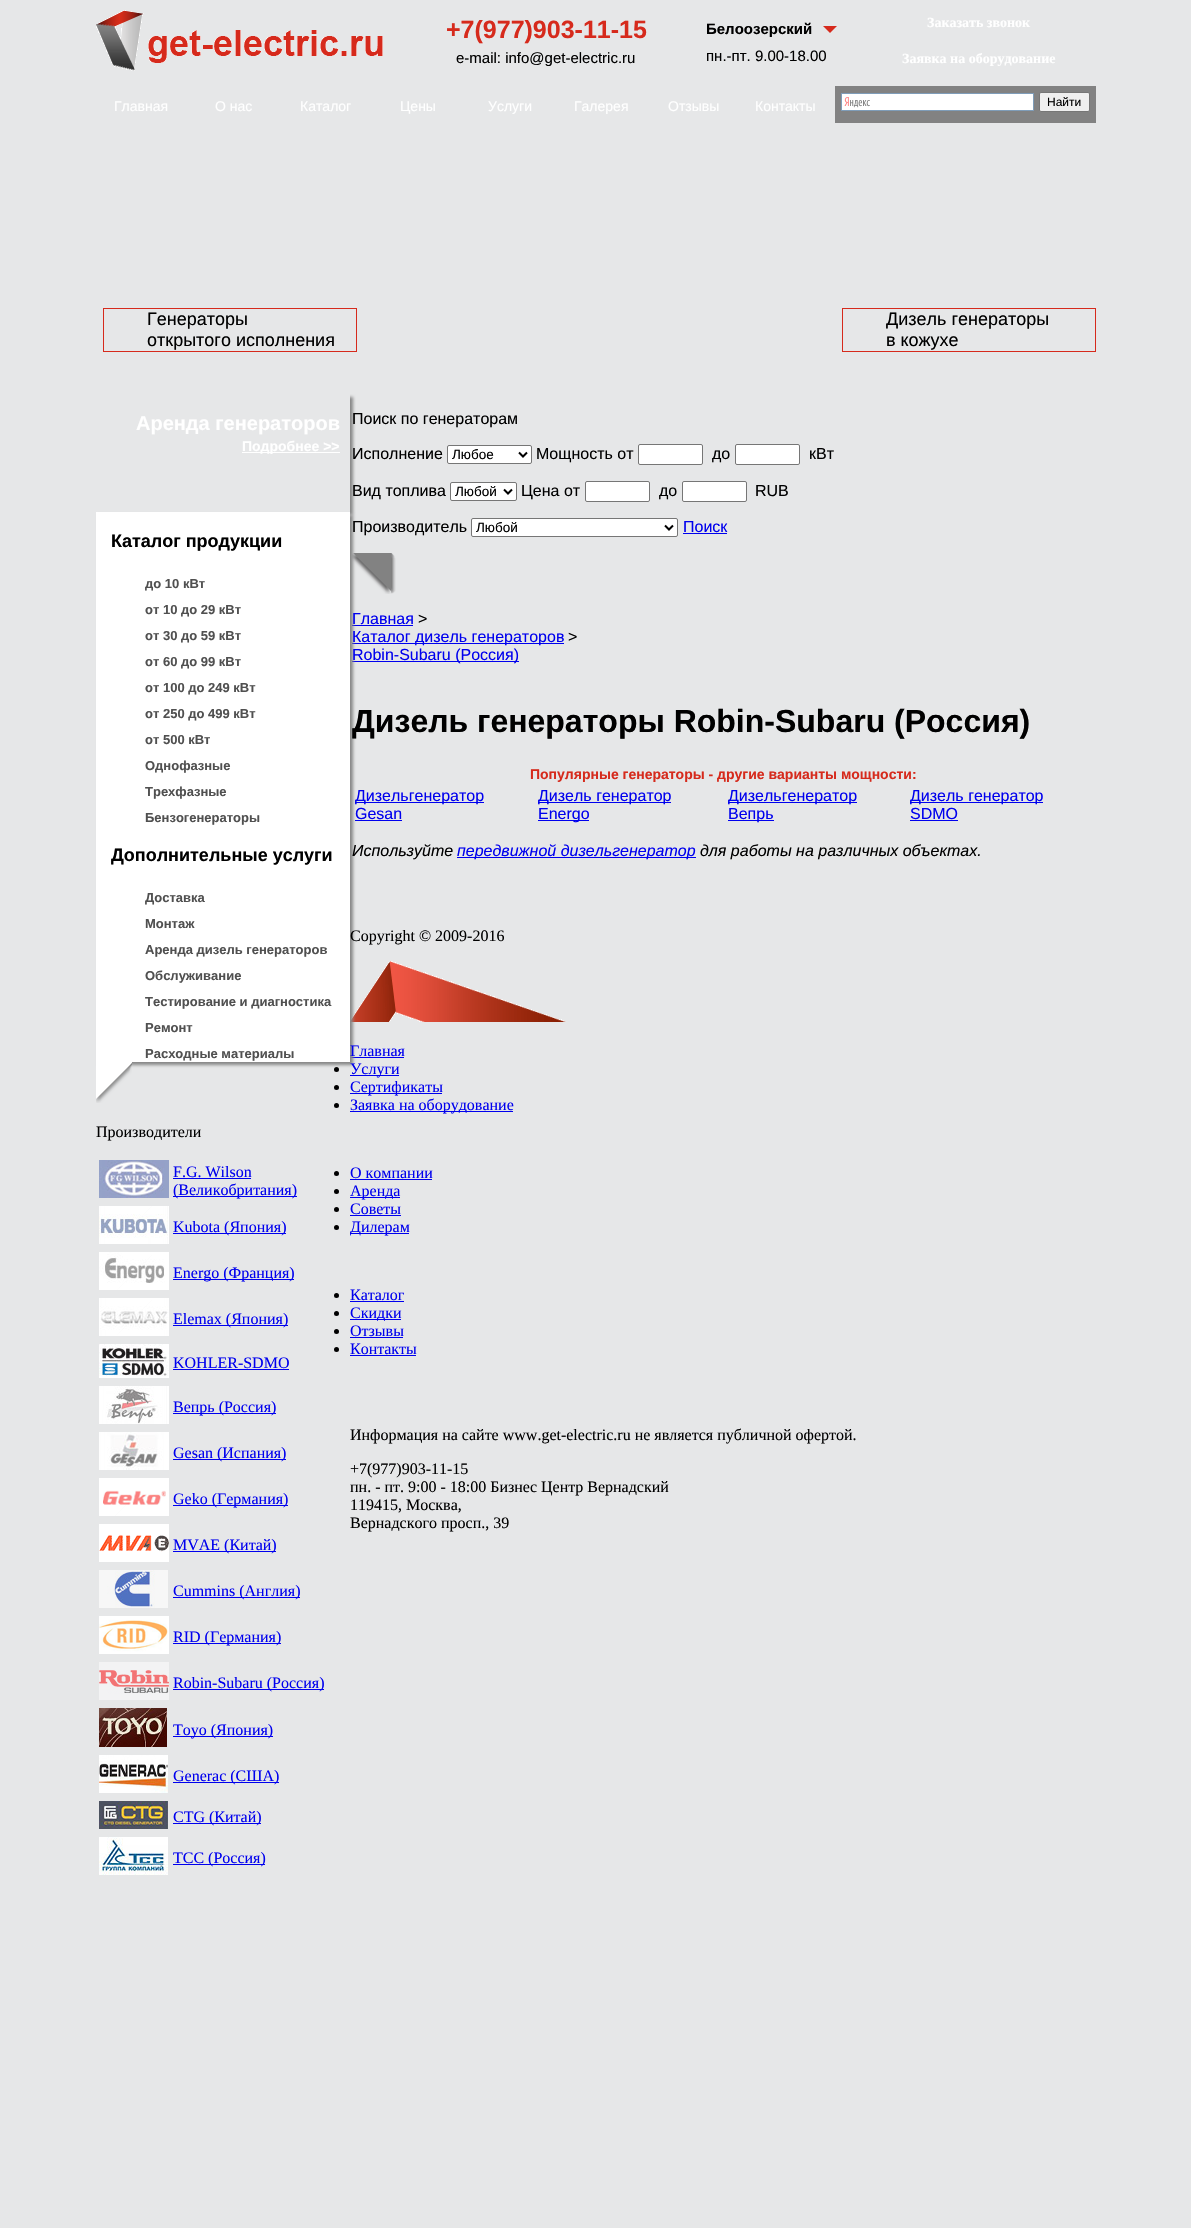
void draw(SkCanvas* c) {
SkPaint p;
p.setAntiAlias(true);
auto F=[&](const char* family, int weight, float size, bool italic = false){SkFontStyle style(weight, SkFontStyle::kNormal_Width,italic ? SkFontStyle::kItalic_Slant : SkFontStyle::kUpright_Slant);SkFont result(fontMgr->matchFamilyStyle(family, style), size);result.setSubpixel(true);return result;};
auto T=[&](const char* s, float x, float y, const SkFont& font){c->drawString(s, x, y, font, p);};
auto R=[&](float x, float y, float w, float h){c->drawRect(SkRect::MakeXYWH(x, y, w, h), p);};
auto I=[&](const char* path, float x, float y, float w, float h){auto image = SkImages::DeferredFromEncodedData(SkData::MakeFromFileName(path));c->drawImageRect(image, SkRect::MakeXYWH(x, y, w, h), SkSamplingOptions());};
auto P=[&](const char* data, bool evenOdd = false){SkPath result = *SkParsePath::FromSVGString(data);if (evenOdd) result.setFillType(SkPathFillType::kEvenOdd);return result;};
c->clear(0xffe6e7e8);
I("1.png",96,10,287,61);
auto f1 = F("Liberation Sans",700,25);
p.setColor(0xffd62a1c);
T("+7(977)903-11-15",446,38,f1);
auto f2 = F("Liberation Sans",400,15);
p.setColor(0xff000000);
T("e-mail: info@get-electric.ru",456,63,f2);
auto f3 = F("Liberation Sans",700,15);
T("Белоозерский",706,34,f3);
p.setColor(0xffd62a1c);
c->drawPath(P("M823 26h14l-7 7z"),p);
p.setColor(0xff000000);
T("пн.-пт. 9.00-18.00",706,61,f2);
auto f4 = F("Liberation Serif",700,14);
p.setColor(0xffffffff);
T("Заказать звонок",927,27,f4);
T("Заявка на оборудование",902,63,f4);
auto f5 = F("Liberation Sans",400,14);
T("Главная",114,111,f5);
T("О нас",215,111,f5);
T("Каталог",300,111,f5);
T("Цены",400,111,f5);
T("Услуги",488,111,f5);
T("Галерея",574,111,f5);
T("Отзывы",668,111,f5);
T("Контакты",755,111,f5);
p.setColor(0xff828282);
R(835,86,261,37);
p.setColor(0xffffffff);
R(842,94,191,16);
I("2.png",844,97,26,11);
p.setStroke(true);
p.setStrokeWidth(1);
p.setColor(0xff7f9db9);
c->drawRect(SkRect::MakeXYWH(841.5,93.5,192,17),p);
p.setStroke(false);
p.setColor(0xffefefef);
c->drawRoundRect(SkRect::MakeXYWH(1039.5,92.5,50,19),1.5,1.5,p);
p.setStroke(true);
p.setColor(0xff767676);
c->drawRoundRect(SkRect::MakeXYWH(1039.5,92.5,50,19),1.5,1.5,p);
auto f6 = F("Liberation Sans",400,12);
p.setStroke(false);
p.setColor(0xff000000);
T("Найти",1047,106,f6);
p.setStroke(true);
p.setColor(0xffd62a1c);
c->drawRect(SkRect::MakeXYWH(103.5,308.5,253,43),p);
auto f7 = F("Liberation Sans",400,18);
p.setStroke(false);
p.setColor(0xff000000);
T("Генераторы",147,325,f7);
T("открытого исполнения",147,346,f7);
p.setStroke(true);
p.setColor(0xffd62a1c);
c->drawRect(SkRect::MakeXYWH(842.5,308.5,253,43),p);
p.setStroke(false);
p.setColor(0xff000000);
T("Дизель генераторы",886,325,f7);
T("в кожухе",886,346,f7);
c->save();
c->clipRect(SkRect::MakeXYWH(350,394,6,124));
p.setColor(0xff888888);
p.setMaskFilter(SkMaskFilter::MakeBlur(kNormal_SkBlurStyle, 1.5));
c->drawRect(SkRect::MakeXYWH(99,397,254,118),p);
p.setMaskFilter(nullptr);
c->restore();
auto f8 = F("Liberation Sans",700,20);
p.setColor(0xffffffff);
T("Аренда генераторов",136,430,f8);
R(242,452,98,1);
auto f9 = F("Liberation Sans",700,14);
T("Подробнее >>",242,451,f9);
I("20.png",352,553,44,41);
p.setColor(0xff0000ee);
R(352,625,61,1);
R(352,643,212,1);
R(352,661,167,1);
R(355,802,129,1);
R(355,820,47,1);
I("21.png",350,961,216,61);
R(350,1057,54,1);
p.setColor(0xff000000);
c->drawCircle(336.5,1069.5,2.5,p);
p.setColor(0xff888888);
p.setMaskFilter(SkMaskFilter::MakeBlur(kNormal_SkBlurStyle, 1.5));
c->drawRect(SkRect::MakeXYWH(99,515,254,550),p);
p.setMaskFilter(nullptr);
auto f10 = F("Liberation Serif",400,16);
p.setColor(0xff0000ee);
T("Главная",350,1056,f10);
p.setColor(0xffffffff);
R(96,512,254,550);
auto f11 = F("Liberation Sans",700,18);
p.setColor(0xff000000);
T("Каталог продукции",111,547,f11);
auto f12 = F("Liberation Sans",700,13);
p.setColor(0xff505050);
T("до 10 кВт",145,588,f12);
T("от 10 до 29 кВт",145,614,f12);
T("от 30 до 59 кВт",145,640,f12);
T("от 60 до 99 кВт",145,666,f12);
T("от 100 до 249 кВт",145,692,f12);
T("от 250 до 499 кВт",145,718,f12);
T("от 500 кВт",145,744,f12);
T("Однофазные",145,770,f12);
T("Трехфазные",145,796,f12);
T("Бензогенераторы",145,822,f12);
p.setColor(0xff000000);
T("Дополнительные услуги",111,861,f11);
p.setColor(0xff505050);
T("Доставка",145,902,f12);
T("Монтаж",145,928,f12);
T("Аренда дизель генераторов",145,954,f12);
T("Обслуживание",145,980,f12);
T("Тестирование и диагностика",145,1006,f12);
T("Ремонт",145,1032,f12);
T("Расходные материалы",145,1058,f12);
I("3.png",96,1062,36,41);
p.setColor(0xff000000);
T("Производители",96,1137,f10);
I("4.png",99,1160,70,38);
p.setColor(0xff0000ee);
T("F.G. Wilson",173,1177,f10);
R(173,1178,78,1);
R(173,1196,124,1);
T("(Великобритания)",173,1195,f10);
I("5.png",99,1206,70,38);
R(173,1233,113,1);
T("Kubota (Япония)",173,1232,f10);
I("6.png",99,1252,70,38);
R(173,1279,121,1);
T("Energo (Франция)",173,1278,f10);
I("7.png",99,1298,70,38);
R(173,1325,115,1);
T("Elemax (Япония)",173,1324,f10);
I("8.png",99,1344,70,34);
T("KOHLER-SDMO",173,1368,f10);
R(173,1369,116,1);
I("9.png",99,1386,70,38);
R(173,1413,103,1);
T("Вепрь (Россия)",173,1412,f10);
I("10.png",99,1432,70,38);
R(173,1459,113,1);
T("Gesan (Испания)",173,1458,f10);
I("11.png",99,1478,70,38);
R(173,1505,115,1);
T("Geko (Германия)",173,1504,f10);
I("12.png",99,1524,70,38);
R(173,1551,103,1);
T("MVAE (Китай)",173,1550,f10);
I("13.png",99,1570,69,38);
R(173,1597,127,1);
T("Cummins (Англия)",173,1596,f10);
I("14.png",99,1616,70,38);
R(173,1643,108,1);
T("RID (Германия)",173,1642,f10);
I("15.png",99,1662,70,38);
R(173,1689,151,1);
T("Robin-Subaru (Россия)",173,1688,f10);
I("16.png",99,1708,68,39);
R(173,1736,100,1);
T("Toyo (Япония)",173,1735,f10);
I("17.png",99,1755,69,38);
R(173,1782,106,1);
T("Generac (США)",173,1781,f10);
I("18.png",99,1801,69,28);
R(173,1823,88,1);
T("CTG (Китай)",173,1822,f10);
I("19.png",99,1837,69,38);
R(173,1864,92,1);
T("ТСС (Россия)",173,1863,f10);
auto f13 = F("Liberation Sans",400,16);
p.setColor(0xff000000);
T("Поиск по генераторам",352,424,f13);
T("Исполнение",352,459,f13);
p.setColor(0xffffffff);
c->drawRoundRect(SkRect::MakeXYWH(447.5,445.5,84,18),1.5,1.5,p);
p.setStroke(true);
p.setColor(0xff767676);
c->drawRoundRect(SkRect::MakeXYWH(447.5,445.5,84,18),1.5,1.5,p);
p.setStrokeWidth(2);
p.setColor(0xff000000);
c->drawPath(P("M519 452.5l4 4l4-4"),p);
auto f14 = F("Liberation Sans",400,13.5);
p.setStroke(false);
T("Любое",452,459,f14);
T("Мощность от",536,459,f13);
p.setColor(0xffffffff);
c->drawRoundRect(SkRect::MakeXYWH(638.5,444.5,64,20),1.5,1.5,p);
p.setStroke(true);
p.setStrokeWidth(1);
p.setColor(0xff767676);
c->drawRoundRect(SkRect::MakeXYWH(638.5,444.5,64,20),1.5,1.5,p);
p.setStroke(false);
p.setColor(0xff000000);
T("до",712,459,f13);
p.setColor(0xffffffff);
c->drawRoundRect(SkRect::MakeXYWH(735.5,444.5,64,20),1.5,1.5,p);
p.setStroke(true);
p.setColor(0xff767676);
c->drawRoundRect(SkRect::MakeXYWH(735.5,444.5,64,20),1.5,1.5,p);
p.setStroke(false);
p.setColor(0xff000000);
T("кВт",809,459,f13);
T("Вид топлива",352,496,f13);
p.setColor(0xffffffff);
c->drawRoundRect(SkRect::MakeXYWH(450.5,482.5,66,18),1.5,1.5,p);
p.setStroke(true);
p.setColor(0xff767676);
c->drawRoundRect(SkRect::MakeXYWH(450.5,482.5,66,18),1.5,1.5,p);
p.setStrokeWidth(2);
p.setColor(0xff000000);
c->drawPath(P("M504 489.5l4 4l4-4"),p);
p.setStroke(false);
T("Любой",455,496,f14);
T("Цена от",521,496,f13);
p.setColor(0xffffffff);
c->drawRoundRect(SkRect::MakeXYWH(585.5,481.5,64,20),1.5,1.5,p);
p.setStroke(true);
p.setStrokeWidth(1);
p.setColor(0xff767676);
c->drawRoundRect(SkRect::MakeXYWH(585.5,481.5,64,20),1.5,1.5,p);
p.setStroke(false);
p.setColor(0xff000000);
T("до",659,496,f13);
p.setColor(0xffffffff);
c->drawRoundRect(SkRect::MakeXYWH(682.5,481.5,64,20),1.5,1.5,p);
p.setStroke(true);
p.setColor(0xff767676);
c->drawRoundRect(SkRect::MakeXYWH(682.5,481.5,64,20),1.5,1.5,p);
p.setStroke(false);
p.setColor(0xff000000);
T("RUB",755,496,f13);
T("Производитель",352,532,f13);
p.setColor(0xffffffff);
c->drawRoundRect(SkRect::MakeXYWH(471.5,518.5,206,18),1.5,1.5,p);
p.setStroke(true);
p.setColor(0xff767676);
c->drawRoundRect(SkRect::MakeXYWH(471.5,518.5,206,18),1.5,1.5,p);
p.setStrokeWidth(2);
p.setColor(0xff000000);
c->drawPath(P("M665 525.5l4 4l4-4"),p);
p.setStroke(false);
T("Любой",476,532,f14);
p.setColor(0xff0000ee);
T("Поиск",683,532,f13);
R(683,533,44,1);
T("Главная",352,624,f13);
p.setColor(0xff000000);
T(">",418,624,f13);
p.setColor(0xff0000ee);
T("Каталог дизель генераторов",352,642,f13);
p.setColor(0xff000000);
T(">",568,642,f13);
p.setColor(0xff0000ee);
T("Robin-Subaru (Россия)",352,660,f13);
auto f15 = F("Liberation Sans",700,32);
p.setColor(0xff000000);
T("Дизель генераторы Robin-Subaru (Россия)",352,732,f15);
p.setColor(0xffd62a1c);
T("Популярные генераторы - другие варианты мощности:",530,779,f9);
p.setColor(0xff0000ee);
T("Дизельгенератор",355,801,f13);
T("Gesan",355,819,f13);
R(538,802,133,1);
T("Дизель генератор",538,801,f13);
R(538,820,51,1);
T("Energo",538,819,f13);
R(728,802,129,1);
T("Дизельгенератор",728,801,f13);
R(728,820,46,1);
T("Вепрь",728,819,f13);
R(910,802,133,1);
T("Дизель генератор",910,801,f13);
T("SDMO",910,819,f13);
R(910,820,48,1);
auto f16 = F("Liberation Sans",400,16,true);
p.setColor(0xff000000);
T("Используйте",352,856,f16);
p.setColor(0xff0000ee);
R(457,857,239,1);
T("передвижной дизельгенератор",457,856,f16);
p.setColor(0xff000000);
T("для работы на различных объектах.",700,856,f16);
T("Copyright © 2009-2016",350,941,f10);
p.setColor(0xff0000ee);
R(350,1075,49,1);
T("Услуги",350,1074,f10);
p.setColor(0xff000000);
c->drawCircle(336.5,1087.5,2.5,p);
p.setColor(0xff0000ee);
R(350,1093,92,1);
T("Сертификаты",350,1092,f10);
p.setColor(0xff000000);
c->drawCircle(336.5,1105.5,2.5,p);
p.setColor(0xff0000ee);
R(350,1111,163,1);
T("Заявка на оборудование",350,1110,f10);
p.setColor(0xff000000);
c->drawCircle(336.5,1173.5,2.5,p);
p.setColor(0xff0000ee);
T("О компании",350,1178,f10);
R(350,1179,82,1);
p.setColor(0xff000000);
c->drawCircle(336.5,1191.5,2.5,p);
p.setColor(0xff0000ee);
R(350,1197,50,1);
T("Аренда",350,1196,f10);
p.setColor(0xff000000);
c->drawCircle(336.5,1209.5,2.5,p);
p.setColor(0xff0000ee);
T("Советы",350,1214,f10);
R(350,1215,51,1);
p.setColor(0xff000000);
c->drawCircle(336.5,1227.5,2.5,p);
p.setColor(0xff0000ee);
R(350,1233,59,1);
T("Дилерам",350,1232,f10);
p.setColor(0xff000000);
c->drawCircle(336.5,1295.5,2.5,p);
p.setColor(0xff0000ee);
T("Каталог",350,1300,f10);
R(350,1301,54,1);
p.setColor(0xff000000);
c->drawCircle(336.5,1313.5,2.5,p);
p.setColor(0xff0000ee);
R(350,1319,51,1);
T("Скидки",350,1318,f10);
p.setColor(0xff000000);
c->drawCircle(336.5,1331.5,2.5,p);
p.setColor(0xff0000ee);
T("Отзывы",350,1336,f10);
R(350,1337,53,1);
p.setColor(0xff000000);
c->drawCircle(336.5,1349.5,2.5,p);
p.setColor(0xff0000ee);
T("Контакты",350,1354,f10);
R(350,1355,66,1);
p.setColor(0xff000000);
T("Информация на сайте www.get-electric.ru не является публичной офертой.",350,1440,f10);
T("+7(977)903-11-15",350,1474,f10);
T("пн. - пт. 9:00 - 18:00 Бизнес Центр Вернадский",350,1492,f10);
T("119415, Москва,",350,1510,f10);
T("Вернадского просп., 39",350,1528,f10);
}
